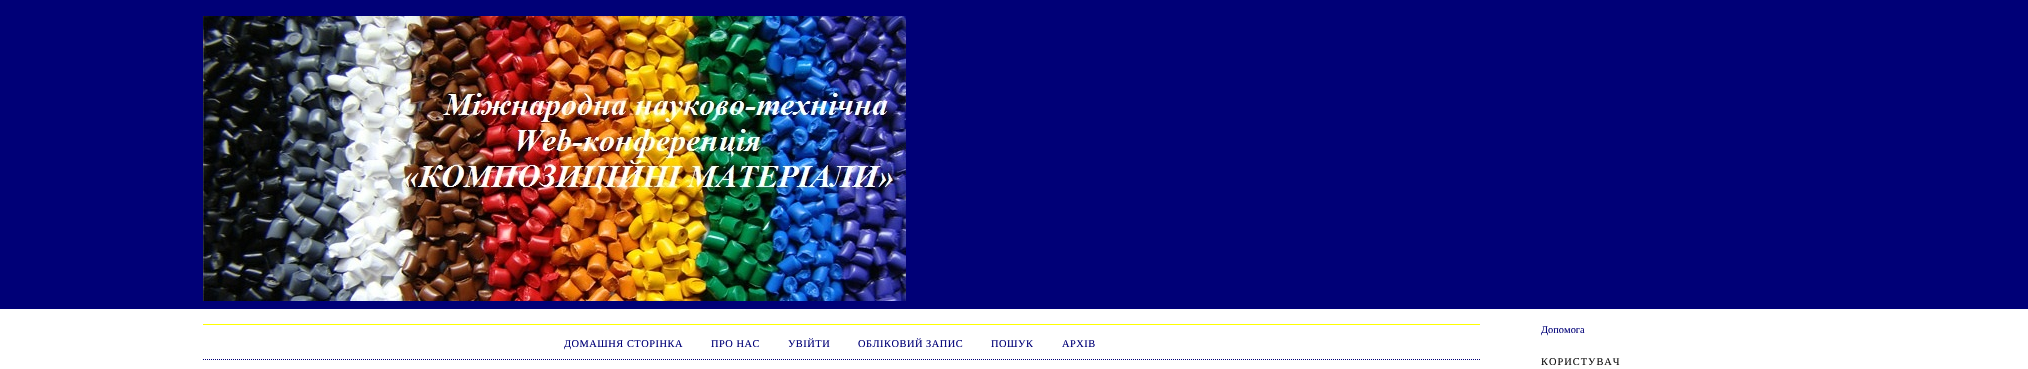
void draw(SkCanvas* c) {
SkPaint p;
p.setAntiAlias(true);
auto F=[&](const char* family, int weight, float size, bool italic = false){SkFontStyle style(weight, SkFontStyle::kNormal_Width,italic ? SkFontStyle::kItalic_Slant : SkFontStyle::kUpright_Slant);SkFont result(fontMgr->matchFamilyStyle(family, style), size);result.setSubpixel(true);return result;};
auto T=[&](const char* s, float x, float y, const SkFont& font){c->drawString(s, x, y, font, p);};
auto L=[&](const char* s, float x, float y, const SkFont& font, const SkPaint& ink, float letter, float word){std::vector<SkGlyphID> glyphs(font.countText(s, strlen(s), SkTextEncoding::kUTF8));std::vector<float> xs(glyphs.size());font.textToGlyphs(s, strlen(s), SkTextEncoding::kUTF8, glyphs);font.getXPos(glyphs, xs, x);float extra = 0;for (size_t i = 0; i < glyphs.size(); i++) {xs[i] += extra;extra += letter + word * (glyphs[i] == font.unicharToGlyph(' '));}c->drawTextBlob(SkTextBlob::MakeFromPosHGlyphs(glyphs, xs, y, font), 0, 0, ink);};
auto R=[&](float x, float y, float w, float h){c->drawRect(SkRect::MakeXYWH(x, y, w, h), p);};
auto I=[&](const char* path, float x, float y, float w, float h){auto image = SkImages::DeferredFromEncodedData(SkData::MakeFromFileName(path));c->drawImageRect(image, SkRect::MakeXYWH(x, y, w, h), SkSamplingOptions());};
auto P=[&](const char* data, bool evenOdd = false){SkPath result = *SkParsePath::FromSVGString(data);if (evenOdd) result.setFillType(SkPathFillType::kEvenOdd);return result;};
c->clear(0xffffffff);
p.setColor(0xff000077);
R(0,0,2028,309);
I("1.png",203,16,703,285);
p.setColor(0xffffff00);
R(203,324,1277,1);
p.setStroke(true);
p.setStrokeWidth(1);
p.setColor(0xff000077);
p.setPathEffect(SkDashPathEffect::Make({{1,1}}, 0));
c->drawPath(P("M203 359.5h1277"),p);
p.setPathEffect(nullptr);
auto f1 = F("Liberation Serif",400,10.4);
p.setStroke(false);
L("ДОМАШНЯ СТОРІНКА",564,347,f1,p,.5,0);
L("ПРО НАС",711,347,f1,p,.5,0);
L("УВІЙТИ",788,347,f1,p,.5,0);
L("ОБЛІКОВИЙ ЗАПИС",858,347,f1,p,.5,0);
L("ПОШУК",991,347,f1,p,.5,0);
L("АРХІВ",1062,347,f1,p,.5,0);
T("Допомога",1541,333,f1);
p.setColor(0xff111111);
L("КОРИСТУВАЧ",1541,365,f1,p,1,0);
}
